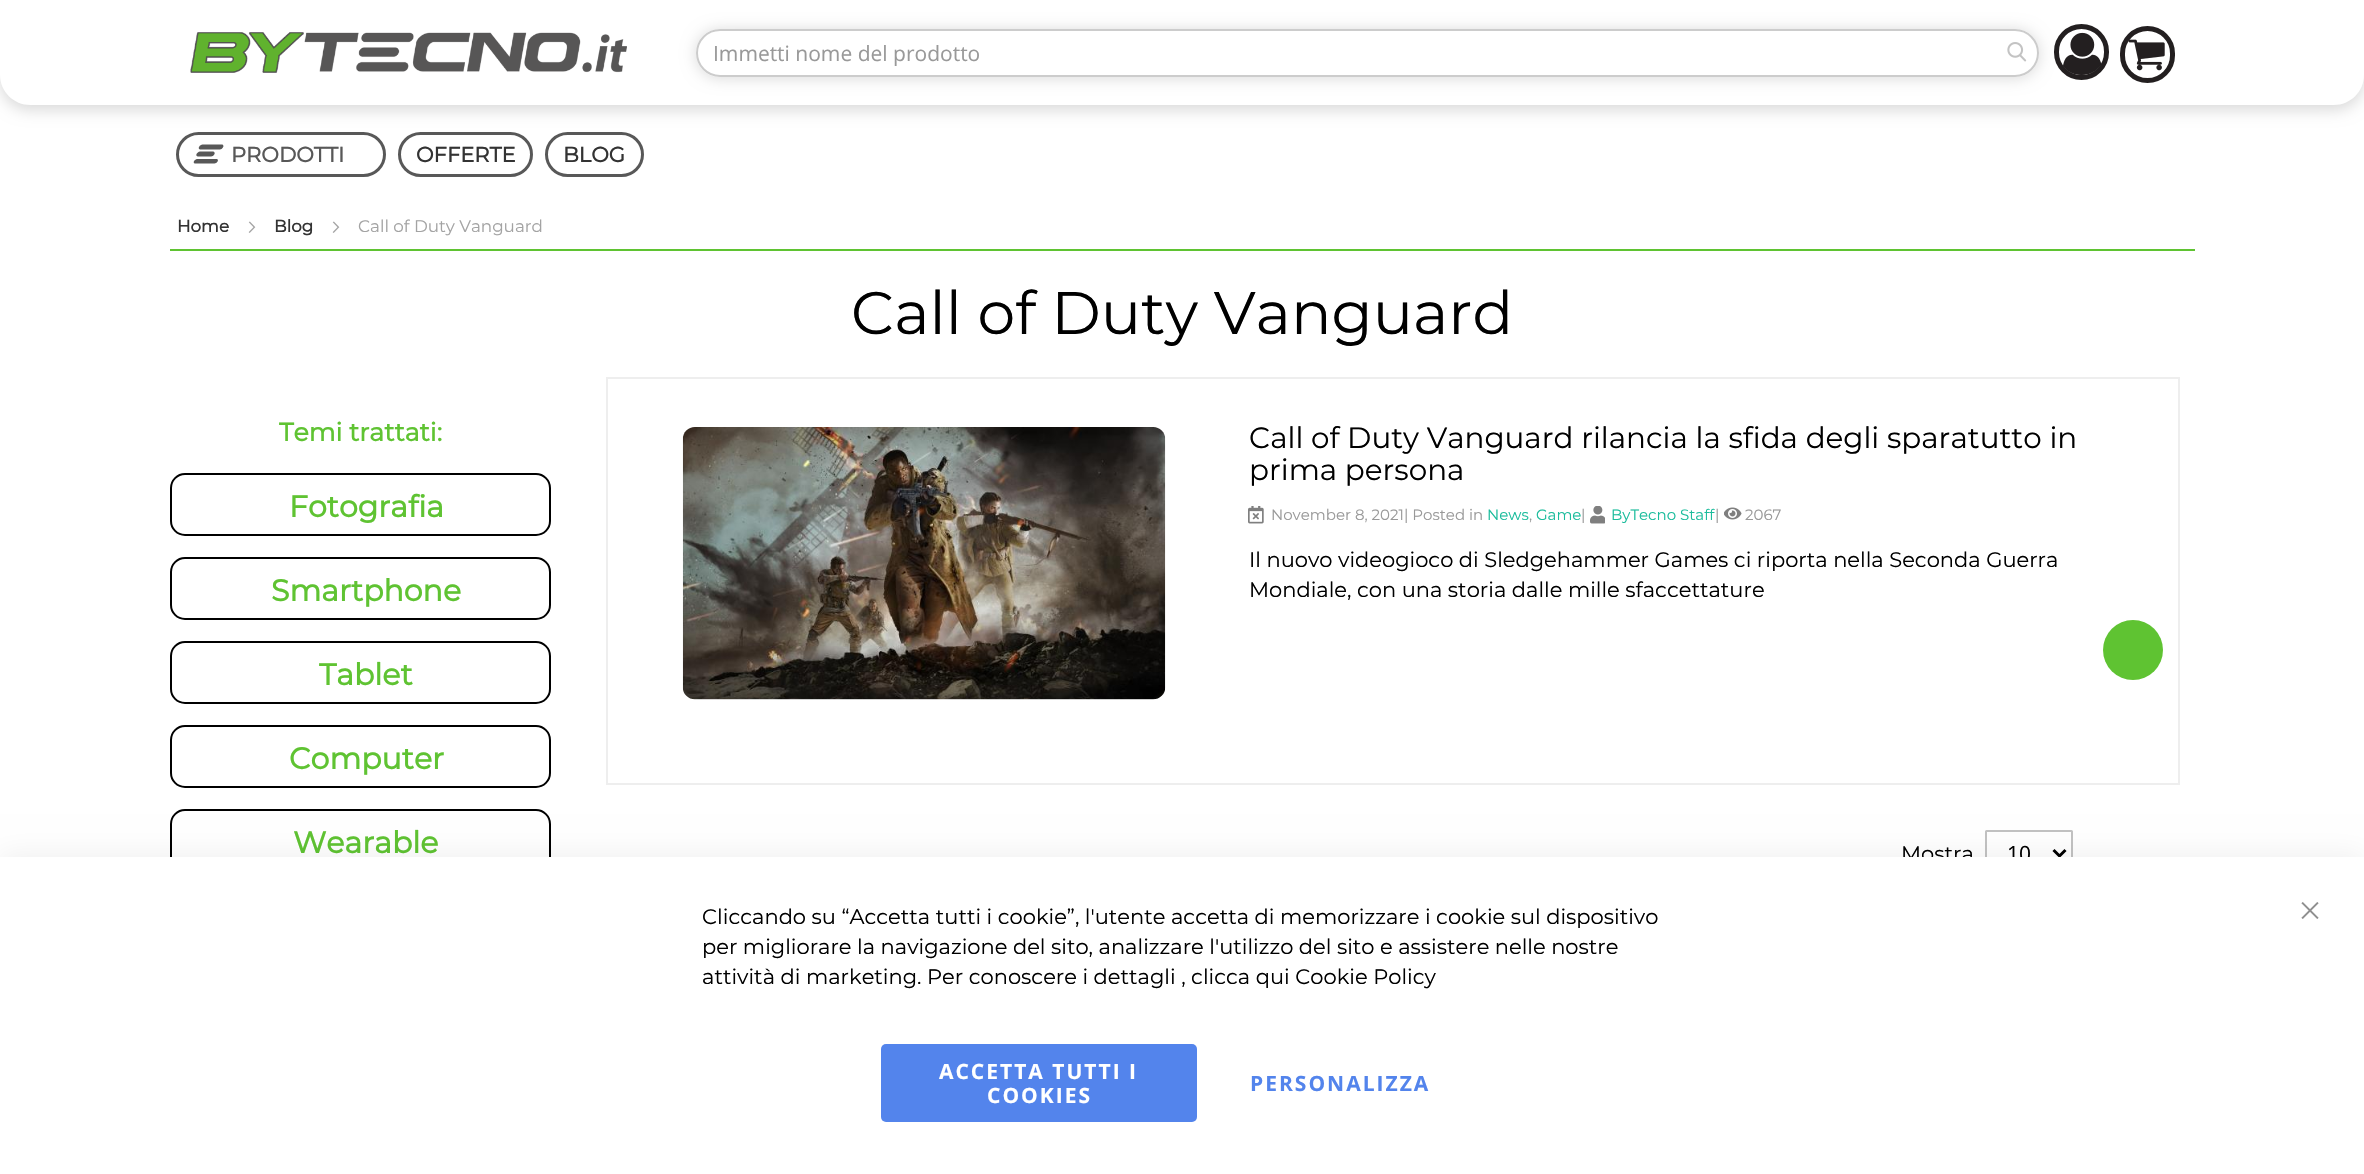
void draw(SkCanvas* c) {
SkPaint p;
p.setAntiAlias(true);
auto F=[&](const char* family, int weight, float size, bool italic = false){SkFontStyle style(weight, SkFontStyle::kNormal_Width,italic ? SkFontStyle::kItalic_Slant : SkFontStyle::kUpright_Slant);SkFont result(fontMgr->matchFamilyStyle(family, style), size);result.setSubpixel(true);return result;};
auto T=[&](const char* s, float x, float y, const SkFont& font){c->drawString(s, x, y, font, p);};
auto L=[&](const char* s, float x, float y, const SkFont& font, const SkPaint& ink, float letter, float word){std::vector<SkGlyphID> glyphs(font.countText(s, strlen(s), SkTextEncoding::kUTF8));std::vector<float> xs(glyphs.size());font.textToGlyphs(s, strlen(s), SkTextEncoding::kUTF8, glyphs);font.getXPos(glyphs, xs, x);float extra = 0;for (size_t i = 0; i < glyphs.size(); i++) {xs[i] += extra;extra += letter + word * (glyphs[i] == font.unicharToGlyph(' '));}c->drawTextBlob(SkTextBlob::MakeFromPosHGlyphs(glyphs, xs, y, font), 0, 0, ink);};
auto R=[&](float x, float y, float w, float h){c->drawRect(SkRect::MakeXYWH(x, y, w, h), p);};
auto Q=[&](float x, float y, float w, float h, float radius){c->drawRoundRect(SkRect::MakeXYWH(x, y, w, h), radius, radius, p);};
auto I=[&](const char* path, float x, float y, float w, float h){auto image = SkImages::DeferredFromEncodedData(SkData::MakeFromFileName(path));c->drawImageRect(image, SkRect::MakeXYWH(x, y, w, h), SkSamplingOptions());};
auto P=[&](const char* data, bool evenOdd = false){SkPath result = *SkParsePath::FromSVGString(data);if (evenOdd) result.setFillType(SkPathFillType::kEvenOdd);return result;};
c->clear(0xffffffff);
p.setColor(0x26000000);
p.setMaskFilter(SkMaskFilter::MakeBlur(kNormal_SkBlurStyle, 7.5));
c->drawRoundRect(SkRect::MakeXYWH(0,5,2364,105),30,30,p);
p.setMaskFilter(nullptr);
p.setColor(0xffffffff);
c->drawPath(P("M0 0h2364v75c0 16.5-13.5 30-30 30h-2304c-16.5 0-30-13.5-30-30z"),p);
I("1.png",190,32,437,41);
c->save();
c->clipPath(P("M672 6h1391v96h-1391zm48 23h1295c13.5 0 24 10.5 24 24c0 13.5-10.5 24-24 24h-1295c-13.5 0-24-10.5-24-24c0-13.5 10.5-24 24-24z",true),true);
p.setColor(0x26000000);
p.setMaskFilter(SkMaskFilter::MakeBlur(kNormal_SkBlurStyle, 7.5));
c->drawRoundRect(SkRect::MakeXYWH(696,30,1343,48),24,24,p);
p.setMaskFilter(nullptr);
c->restore();
p.setStroke(true);
p.setStrokeWidth(2);
p.setColor(0xffcccccc);
c->drawRoundRect(SkRect::MakeXYWH(697,30,1341,46),23,23,p);
auto f1 = F("Open Sans",400,21);
p.setStroke(false);
p.setColor(0xff999999);
T("Immetti nome del prodotto",713,61,f1);
I("2.png",2007,42,20,20);
p.setStroke(true);
p.setStrokeWidth(5);
p.setColor(0xff231f20);
c->drawRoundRect(SkRect::MakeXYWH(2056.5,26.5,50,51),25,25,p);
I("3.png",2063,32,38,43);
c->drawRoundRect(SkRect::MakeXYWH(2122.5,28.5,50,52),25,25,p);
I("4.png",2128,39,37,32);
p.setStrokeWidth(3);
p.setColor(0xff585858);
c->drawRoundRect(SkRect::MakeXYWH(177.5,133.5,207,42),21,21,p);
p.setStroke(false);
c->drawPath(P("M202.5 144.5h20c2.5 1.5-.5 5-2.5 5h-20c-3-1 0-5 2.5-5zm-2.5 7h13c1.5 0 2 1.5 1.5 2.5c-.5 1.5-2 2.5-3.5 2.5h-13c-1.5 0-2-1-1.5-2.5c.5-1 2-2.5 3.5-2.5zm-3 7.5h20c2.5 1.5-.5 4.5-2.5 4.5h-19.5c-3-.5 0-4.5 2-4.5z"),p);
auto f2 = F("Montserrat",700,21);
T("PRODOTTI",231,162,f2);
p.setStroke(true);
c->drawRoundRect(SkRect::MakeXYWH(399.5,133.5,132,42),21,21,p);
p.setStroke(false);
p.setColor(0xff333333);
T("OFFERTE",416,162,f2);
p.setStroke(true);
p.setColor(0xff585858);
c->drawRoundRect(SkRect::MakeXYWH(546.5,133.5,96,42),21,21,p);
p.setStroke(false);
p.setColor(0xff333333);
T("BLOG",563,162,f2);
p.setColor(0xff5fc332);
R(170,249,2025,2);
auto f3 = F("Montserrat",700,16.75);
p.setColor(0xff333333);
T("Home",177,232,f3);
I("5.png",248,221,8,12);
T("Blog",274,232,f3);
I("5.png",332,221,8,12);
auto f4 = F("Montserrat",400,16.75);
p.setColor(0xffa3a3a3);
T("Call of Duty Vanguard",358,232,f4);
auto f5 = F("Montserrat",400,60);
p.setColor(0xff000000);
T("Call of Duty Vanguard",851,334,f5);
auto f6 = F("Montserrat",700,25.25);
p.setColor(0xff5fc332);
T("Temi trattati:",279,441,f6);
p.setStroke(true);
p.setStrokeWidth(2);
p.setColor(0xff000000);
c->drawRoundRect(SkRect::MakeXYWH(171,474,379,61),14,14,p);
auto f7 = F("Montserrat",700,30);
p.setStroke(false);
p.setColor(0xff5fc332);
T("Fotografia",289,517,f7);
p.setStroke(true);
p.setColor(0xff000000);
c->drawRoundRect(SkRect::MakeXYWH(171,558,379,61),14,14,p);
p.setStroke(false);
p.setColor(0xff5fc332);
T("Smartphone",271,601,f7);
p.setStroke(true);
p.setColor(0xff000000);
c->drawRoundRect(SkRect::MakeXYWH(171,642,379,61),14,14,p);
p.setStroke(false);
p.setColor(0xff5fc332);
T("Tablet",319,685,f7);
p.setStroke(true);
p.setColor(0xff000000);
c->drawRoundRect(SkRect::MakeXYWH(171,726,379,61),14,14,p);
p.setStroke(false);
p.setColor(0xff5fc332);
T("Computer",289,769,f7);
p.setStroke(true);
p.setColor(0xff000000);
c->drawRoundRect(SkRect::MakeXYWH(171,810,379,61),14,14,p);
p.setStroke(false);
p.setColor(0xff5fc332);
T("Wearable",293,853,f7);
p.setStroke(true);
p.setColor(0xffeeeeee);
c->drawRect(SkRect::MakeXYWH(607,378,1572,406),p);
I("6.png",682,427,484,273);
auto f8 = F("Montserrat",400,29.4);
p.setStroke(false);
p.setColor(0xff000000);
T("Call of Duty Vanguard rilancia la sfida degli sparatutto in",1249,448,f8);
T("prima persona",1249,480,f8);
I("7.png",1248,506,16,18);
auto f9 = F("Montserrat",400,15);
p.setColor(0xff999999);
T("November 8, 2021| Posted in",1271,520,f9);
p.setColor(0xff1abc9c);
T("News",1487,520,f9);
p.setColor(0xff999999);
T(",",1529,520,f9);
p.setColor(0xff1abc9c);
T("Game",1536,520,f9);
p.setColor(0xff999999);
T("|",1581,520,f9);
I("8.png",1590,506,15,18);
p.setColor(0xff1abc9c);
T("ByTecno Staff",1611,520,f9);
p.setColor(0xff999999);
T("|",1715,520,f9);
I("9.png",1724,507,18,13);
T("2067",1745,520,f9);
auto f10 = F("Montserrat",400,21);
p.setColor(0xff000000);
T("Il nuovo videogioco di Sledgehammer Games ci riporta nella Seconda Guerra",1249,567,f10);
T("Mondiale, con una storia dalle mille sfaccettature",1249,597,f10);
p.setColor(0xff5fc332);
c->drawCircle(2133,650,30,p);
p.setColor(0xff000000);
T("Mostra",1901,861,f10);
p.setStroke(true);
p.setColor(0xffc2c2c2);
c->drawRoundRect(SkRect::MakeXYWH(1986,831,86,46),.5,.5,p);
p.setStrokeWidth(3);
p.setColor(0xff000000);
c->drawPath(P("M2053.5 850l6 6l6-6"),p);
p.setStroke(false);
T("10",2007,861,f1);
p.setColor(0x0f000000);
p.setMaskFilter(SkMaskFilter::MakeBlur(kNormal_SkBlurStyle, 13.5));
c->drawRect(SkRect::MakeXYWH(0,854,2364,318),p);
p.setMaskFilter(nullptr);
p.setColor(0xffffffff);
R(0,857,2364,317);
p.setColor(0xff000000);
T("Cliccando su “Accetta tutti i cookie”, l'utente accetta di memorizzare i cookie sul dispositivo",702,924,f10);
T("per migliorare la navigazione del sito, analizzare l'utilizzo del sito e assistere nelle nostre",702,954,f10);
T("attività di marketing. Per conoscere i dettagli , clicca qui Cookie Policy",702,984,f10);
p.setColor(0xff5384ec);
Q(881,1044,316,78,5);
auto f11 = F("Open Sans",700,21);
p.setColor(0xffffffff);
L("ACCETTA TUTTI I",939,1079,f11,p,2,0);
L("COOKIES",987,1103,f11,p,2,0);
p.setColor(0xff5384ec);
L("PERSONALIZZA",1250,1091,f11,p,2,0);
I("10.png",2301,902,18,17);
}
